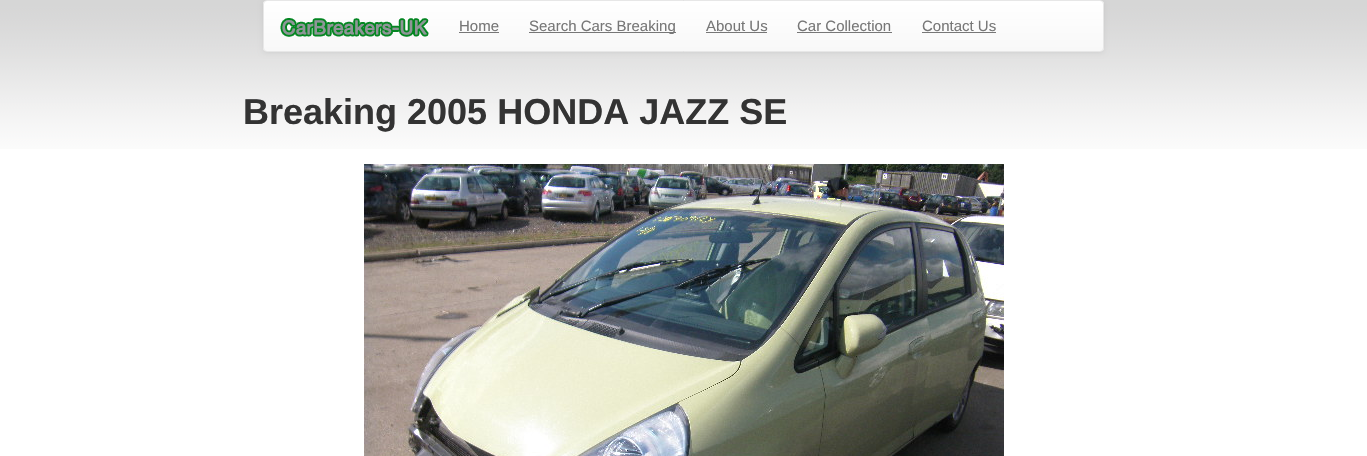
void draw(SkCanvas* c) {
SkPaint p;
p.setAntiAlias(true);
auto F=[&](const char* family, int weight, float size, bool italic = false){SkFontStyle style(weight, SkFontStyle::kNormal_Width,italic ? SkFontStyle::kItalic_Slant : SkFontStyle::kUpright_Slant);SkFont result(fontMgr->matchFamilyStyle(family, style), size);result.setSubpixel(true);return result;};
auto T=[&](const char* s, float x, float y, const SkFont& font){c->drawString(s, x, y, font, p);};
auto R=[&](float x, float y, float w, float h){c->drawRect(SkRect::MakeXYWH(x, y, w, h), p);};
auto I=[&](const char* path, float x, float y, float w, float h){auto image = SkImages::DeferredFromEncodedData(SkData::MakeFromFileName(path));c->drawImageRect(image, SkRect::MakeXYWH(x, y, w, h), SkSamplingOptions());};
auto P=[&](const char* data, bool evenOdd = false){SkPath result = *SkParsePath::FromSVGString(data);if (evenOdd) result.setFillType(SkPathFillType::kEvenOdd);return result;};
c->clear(0xffffffff);
I("1.png",0,0,1367,149);
p.setColor(0x12000000);
p.setMaskFilter(SkMaskFilter::MakeBlur(kNormal_SkBlurStyle, 2.5));
c->drawRoundRect(SkRect::MakeXYWH(263,1,841,52),4,4,p);
p.setMaskFilter(nullptr);
c->save();
c->clipPath(P("M267 0h833c2 0 4 2 4 4v44c0 2-2 4-4 4h-833c-2 0-4-2-4-4v-44c0-2 2-4 4-4z"),true);
{
const SkColor colors[] = {0xffffffff,0xfff8f8f8};
const float stops[] = {0,1};
const SkPoint ends[] = {{684,1}, {684,51}};
p.setShader(SkGradientShader::MakeLinear(ends, colors, stops, 2, SkTileMode::kClamp));
p.setAlpha(255);
}
R(263,1,841,50);
c->restore();
p.setStroke(true);
p.setStrokeWidth(1);
p.setShader(nullptr);
p.setColor(0xffe7e7e7);
c->drawRoundRect(SkRect::MakeXYWH(263.5,.5,840,51),3.5,3.5,p);
I("2.png",280,18,149,19);
auto f1 = F("Liberation Sans",400,15);
p.setStroke(false);
p.setColor(0xff777777);
T("Home",459,31,f1);
R(459,32,40,1);
R(529,32,147,1);
T("Search Cars Breaking",529,31,f1);
T("About Us",706,31,f1);
R(706,32,61,1);
T("Car Collection",797,31,f1);
R(797,32,95,1);
T("Contact Us",922,31,f1);
R(922,32,74,1);
auto f2 = F("Liberation Sans",700,36);
p.setColor(0xff333333);
T("Breaking 2005 HONDA JAZZ SE",243,124,f2);
I("3.png",364,164,640,292);
}
